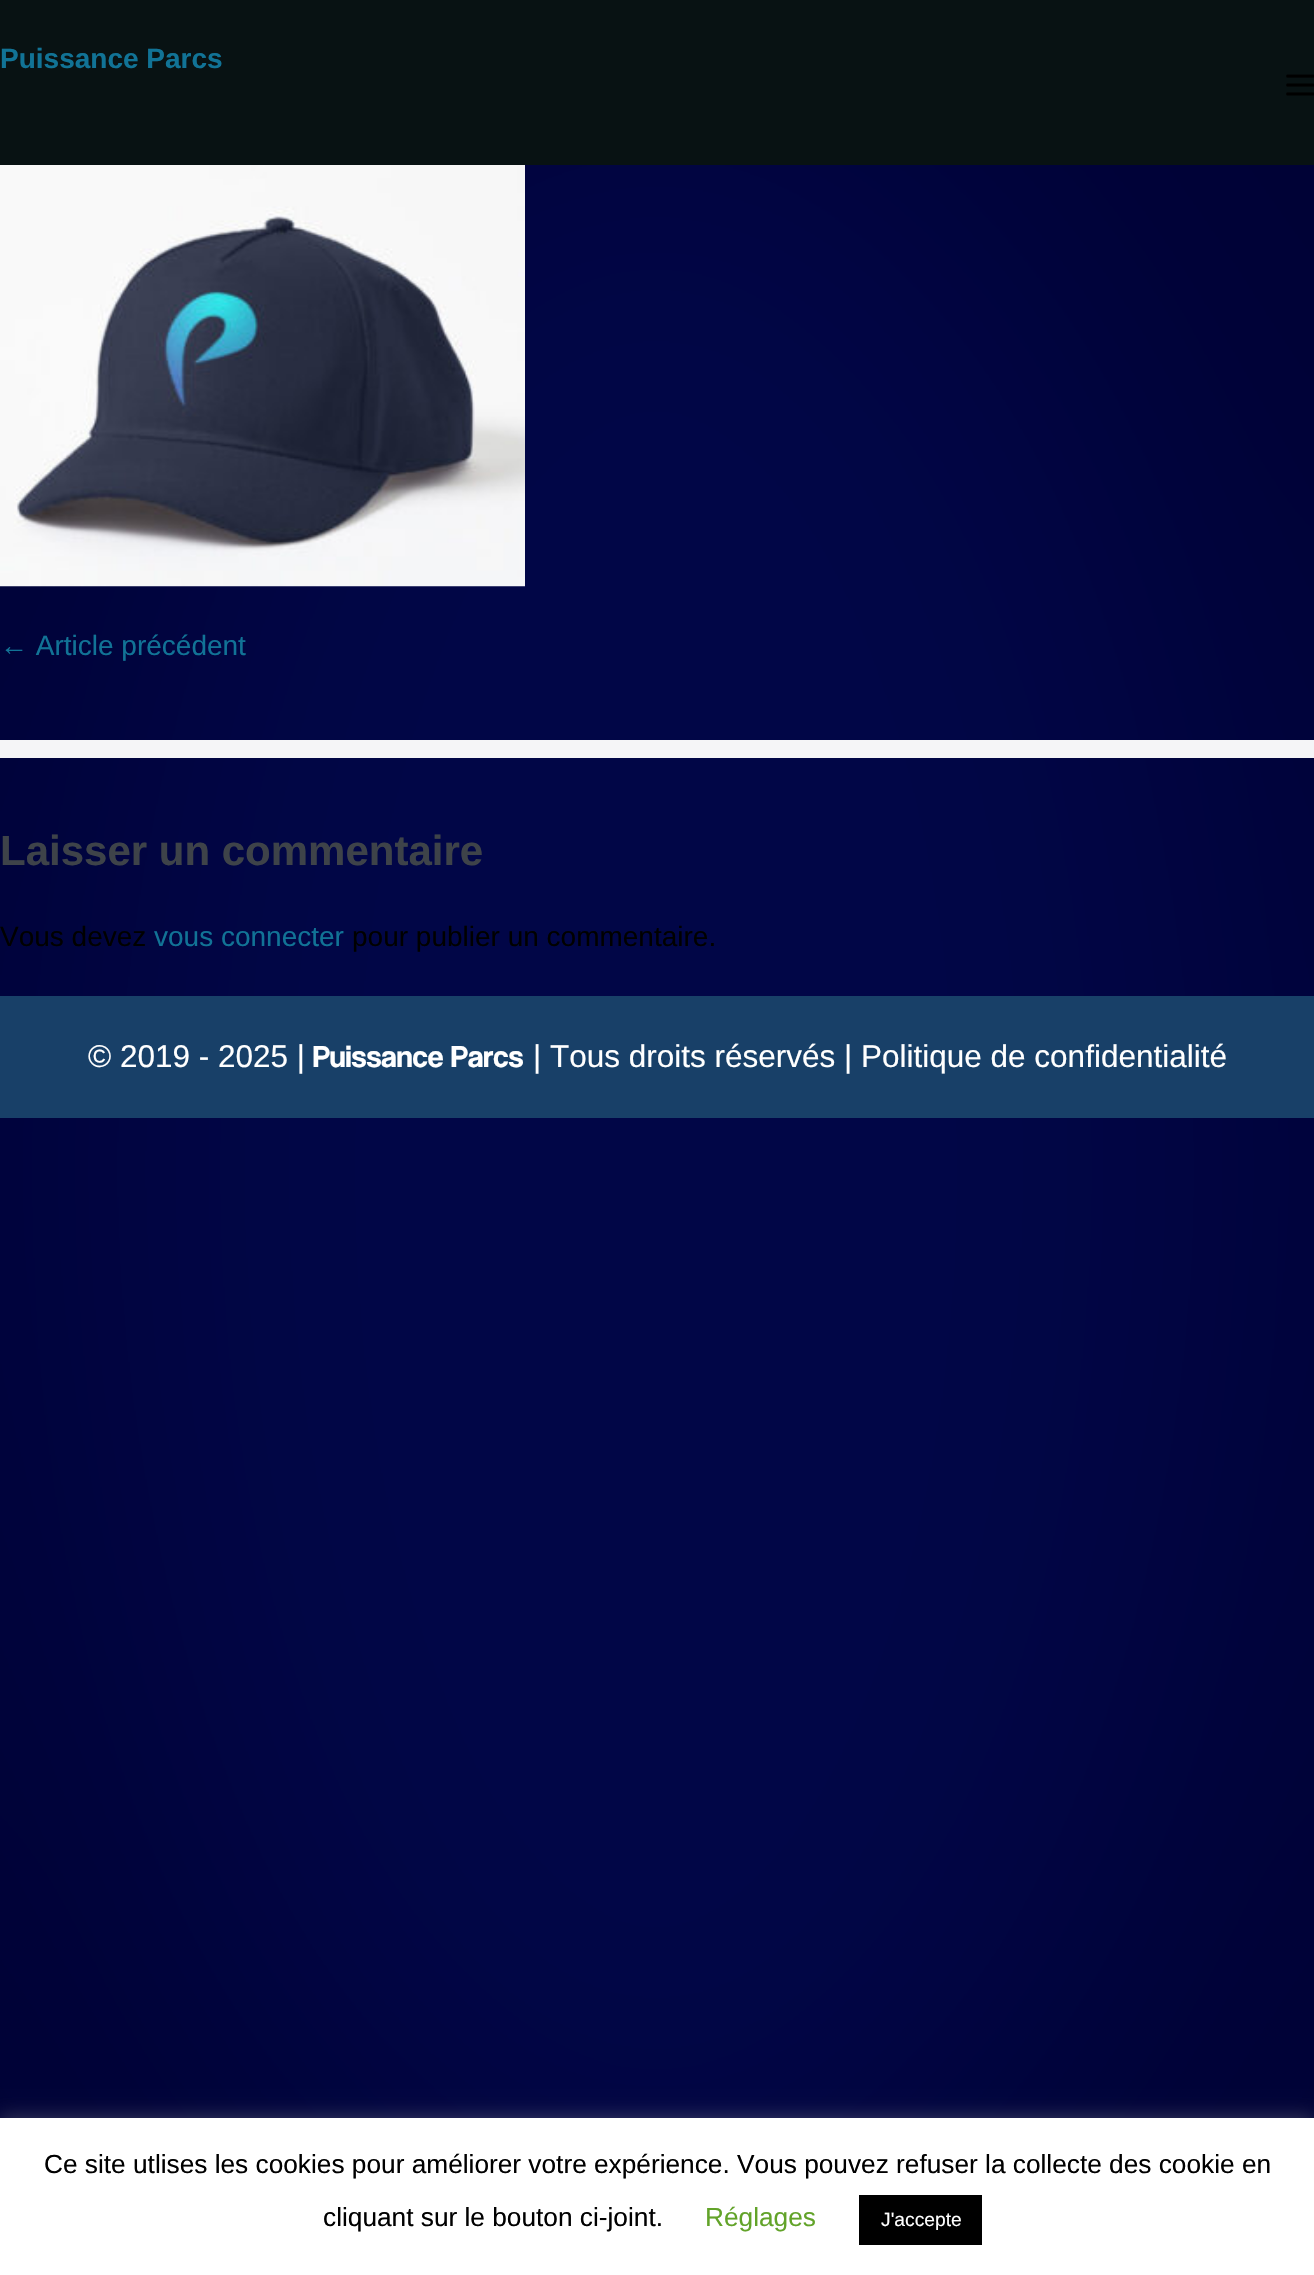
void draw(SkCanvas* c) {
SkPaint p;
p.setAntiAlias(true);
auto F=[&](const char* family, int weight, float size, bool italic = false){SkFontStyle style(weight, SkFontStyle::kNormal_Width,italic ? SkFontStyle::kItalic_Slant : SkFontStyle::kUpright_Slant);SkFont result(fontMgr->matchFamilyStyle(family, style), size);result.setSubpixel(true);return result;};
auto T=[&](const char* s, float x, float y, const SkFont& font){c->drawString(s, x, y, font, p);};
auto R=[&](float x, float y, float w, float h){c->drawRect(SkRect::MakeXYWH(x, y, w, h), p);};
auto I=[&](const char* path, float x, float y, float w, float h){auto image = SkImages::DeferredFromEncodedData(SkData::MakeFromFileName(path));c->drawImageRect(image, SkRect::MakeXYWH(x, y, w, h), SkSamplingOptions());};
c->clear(0xffffffff);
I("1.png",0,165,1314,1953);
p.setColor(0xff081213);
R(0,0,1314,165);
auto f1 = F("Liberation Sans",700,28);
p.setColor(0xff117396);
T("Puissance Parcs",0,68,f1);
I("2.png",1286,74,28,22);
I("3.png",0,165,525,422);
auto f2 = F("Liberation Sans",400,28);
T("← Article précédent",0,655,f2);
p.setColor(0xfff5f5f7);
R(0,740,1314,18);
auto f3 = F("Liberation Sans",700,42);
p.setColor(0xff3e4349);
T("Laisser un commentaire",0,865,f3);
p.setColor(0xff000000);
T("Vous devez",0,946,f2);
p.setColor(0xff117396);
T("vous connecter",154,946,f2);
p.setColor(0xff000000);
T("pour publier un commentaire.",352,946,f2);
p.setColor(0xff184068);
R(0,996,1314,122);
auto f4 = F("Liberation Sans",400,31.5);
p.setColor(0xffffffff);
T("© 2019 - 2025 |",88,1067,f4);
auto f5 = F("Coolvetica",400,31.5);
T("Puissance Parcs",313,1067,f5);
T("| Tous droits réservés | Politique de confidentialité",533,1067,f4);
p.setColor(0x4dacabab);
p.setMaskFilter(SkMaskFilter::MakeBlur(kNormal_SkBlurStyle, 9));
c->drawRect(SkRect::MakeXYWH(0,2116,1314,157),p);
p.setMaskFilter(nullptr);
p.setColor(0xffffffff);
R(0,2118,1314,157);
auto f6 = F("Liberation Sans",400,26.25);
p.setColor(0xff000000);
T("Ce site utlises les cookies pour améliorer votre expérience. Vous pouvez refuser la collecte des cookie en",44,2173,f6);
T("cliquant sur le bouton ci-joint.",323,2226,f6);
p.setColor(0xff62a329);
T("Réglages",705,2226,f6);
p.setColor(0xff000000);
R(859,2195,123,50);
auto f7 = F("Liberation Sans",400,19.25);
p.setColor(0xffffffff);
T("J'accepte",881,2226,f7);
}
